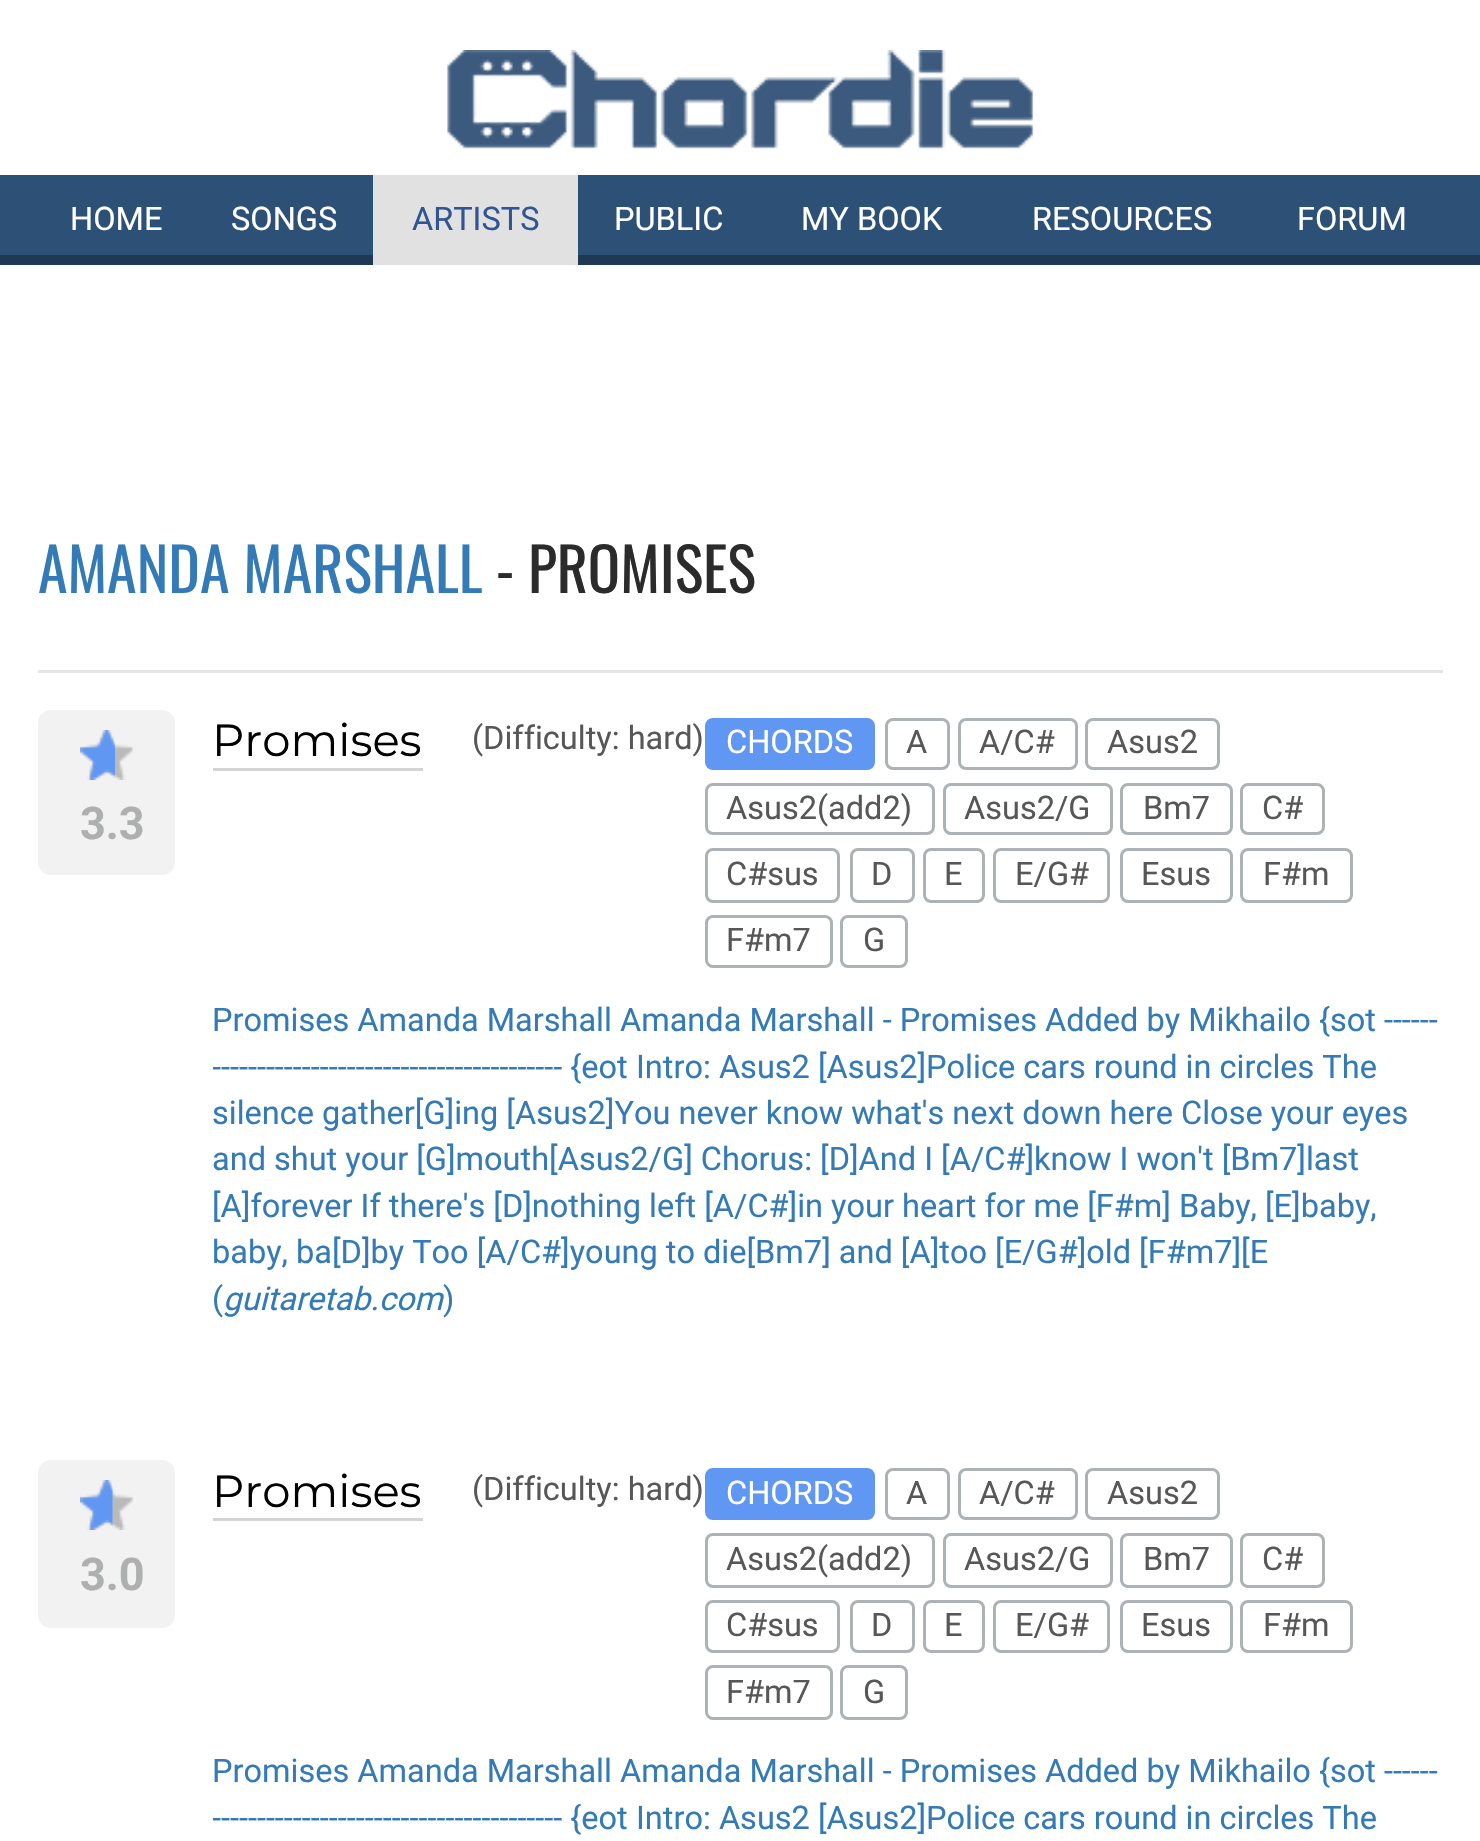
void draw(SkCanvas* c) {
SkPaint p;
p.setAntiAlias(true);
auto F=[&](const char* family, int weight, float size, bool italic = false){SkFontStyle style(weight, SkFontStyle::kNormal_Width,italic ? SkFontStyle::kItalic_Slant : SkFontStyle::kUpright_Slant);SkFont result(fontMgr->matchFamilyStyle(family, style), size);result.setSubpixel(true);return result;};
auto T=[&](const char* s, float x, float y, const SkFont& font){c->drawString(s, x, y, font, p);};
auto R=[&](float x, float y, float w, float h){c->drawRect(SkRect::MakeXYWH(x, y, w, h), p);};
auto Q=[&](float x, float y, float w, float h, float radius){c->drawRoundRect(SkRect::MakeXYWH(x, y, w, h), radius, radius, p);};
auto I=[&](const char* path, float x, float y, float w, float h){auto image = SkImages::DeferredFromEncodedData(SkData::MakeFromFileName(path));c->drawImageRect(image, SkRect::MakeXYWH(x, y, w, h), SkSamplingOptions());};
c->clear(0xffffffff);
I("1.png",447,50,587,99);
p.setColor(0xff2d5077);
R(0,175,1480,80);
p.setColor(0xff1f3853);
R(0,255,1480,10);
auto f1 = F("Roboto",400,32.5);
p.setColor(0xffffffff);
T("HOME",70,230,f1);
T("SONGS",231,230,f1);
p.setColor(0xffe1e1e1);
R(373,175,205,90);
p.setColor(0xff2f5595);
T("ARTISTS",412,230,f1);
p.setColor(0xffffffff);
T("PUBLIC",614,230,f1);
T("MY BOOK",801,230,f1);
T("RESOURCES",1032,230,f1);
T("FORUM",1297,230,f1);
p.setColor(0xffe5e5e5);
R(38,670,1405,3);
auto f2 = F("Oswald",400,60);
p.setColor(0xff337ab7);
T("AMANDA MARSHALL",38,593,f2);
p.setColor(0xff2b2b2b);
T("- PROMISES",496,593,f2);
p.setColor(0xfff2f2f2);
Q(38,710,137,165,13);
I("2.png",80,730,53,50);
I("3.png",80,730,35,50);
auto f3 = F("Roboto",700,45);
p.setColor(0xffaeafaf);
T("3.3",80,839,f3);
p.setColor(0xffd4d4d4);
R(213,768,210,3);
auto f4 = F("Montserrat",400,45);
p.setColor(0xff000000);
T("Promises",212,756,f4);
p.setColor(0xff575757);
T("(Difficulty: hard)",472,749,f1);
p.setColor(0xff6097f3);
c->drawRoundRect(SkRect::MakeXYWH(706.5,719.5,167,49),6.5,6.5,p);
p.setStroke(true);
p.setStrokeWidth(3);
c->drawRoundRect(SkRect::MakeXYWH(706.5,719.5,167,49),6.5,6.5,p);
p.setStroke(false);
p.setColor(0xffffffff);
T("CHORDS",726,753,f1);
p.setStroke(true);
p.setColor(0xffadb2b6);
c->drawRoundRect(SkRect::MakeXYWH(886.5,719.5,62,49),6.5,6.5,p);
p.setStroke(false);
p.setColor(0xff575757);
T("A",906,753,f1);
p.setStroke(true);
p.setColor(0xffadb2b6);
c->drawRoundRect(SkRect::MakeXYWH(959.5,719.5,117,49),6.5,6.5,p);
p.setStroke(false);
p.setColor(0xff575757);
T("A/C#",979,753,f1);
p.setStroke(true);
p.setColor(0xffadb2b6);
c->drawRoundRect(SkRect::MakeXYWH(1086.5,719.5,132,49),6.5,6.5,p);
p.setStroke(false);
p.setColor(0xff575757);
T("Asus2",1107,753,f1);
p.setStroke(true);
p.setColor(0xffadb2b6);
c->drawRoundRect(SkRect::MakeXYWH(706.5,784.5,227,49),6.5,6.5,p);
p.setStroke(false);
p.setColor(0xff575757);
T("Asus2(add2)",726,819,f1);
p.setStroke(true);
p.setColor(0xffadb2b6);
c->drawRoundRect(SkRect::MakeXYWH(944.5,784.5,167,49),6.5,6.5,p);
p.setStroke(false);
p.setColor(0xff575757);
T("Asus2/G",964,819,f1);
p.setStroke(true);
p.setColor(0xffadb2b6);
c->drawRoundRect(SkRect::MakeXYWH(1121.5,784.5,110,49),6.5,6.5,p);
p.setStroke(false);
p.setColor(0xff575757);
T("Bm7",1143,819,f1);
p.setStroke(true);
p.setColor(0xffadb2b6);
c->drawRoundRect(SkRect::MakeXYWH(1241.5,784.5,82,49),6.5,6.5,p);
p.setStroke(false);
p.setColor(0xff575757);
T("C#",1262,819,f1);
p.setStroke(true);
p.setColor(0xffadb2b6);
c->drawRoundRect(SkRect::MakeXYWH(706.5,849.5,132,52),6.5,6.5,p);
p.setStroke(false);
p.setColor(0xff575757);
T("C#sus",726,885,f1);
p.setStroke(true);
p.setColor(0xffadb2b6);
c->drawRoundRect(SkRect::MakeXYWH(851.5,849.5,62,52),6.5,6.5,p);
p.setStroke(false);
p.setColor(0xff575757);
T("D",871,885,f1);
p.setStroke(true);
p.setColor(0xffadb2b6);
c->drawRoundRect(SkRect::MakeXYWH(924.5,849.5,59,52),6.5,6.5,p);
p.setStroke(false);
p.setColor(0xff575757);
T("E",944,885,f1);
p.setStroke(true);
p.setColor(0xffadb2b6);
c->drawRoundRect(SkRect::MakeXYWH(994.5,849.5,114,52),6.5,6.5,p);
p.setStroke(false);
p.setColor(0xff575757);
T("E/G#",1015,885,f1);
p.setStroke(true);
p.setColor(0xffadb2b6);
c->drawRoundRect(SkRect::MakeXYWH(1121.5,849.5,110,52),6.5,6.5,p);
p.setStroke(false);
p.setColor(0xff575757);
T("Esus",1141,885,f1);
p.setStroke(true);
p.setColor(0xffadb2b6);
c->drawRoundRect(SkRect::MakeXYWH(1241.5,849.5,110,52),6.5,6.5,p);
p.setStroke(false);
p.setColor(0xff575757);
T("F#m",1263,885,f1);
p.setStroke(true);
p.setColor(0xffadb2b6);
c->drawRoundRect(SkRect::MakeXYWH(706.5,916.5,125,50),6.5,6.5,p);
p.setStroke(false);
p.setColor(0xff575757);
T("F#m7",726,951,f1);
p.setStroke(true);
p.setColor(0xffadb2b6);
c->drawRoundRect(SkRect::MakeXYWH(841.5,916.5,65,50),6.5,6.5,p);
p.setStroke(false);
p.setColor(0xff575757);
T("G",863,951,f1);
p.setColor(0xff337ab7);
T("Promises Amanda Marshall Amanda Marshall - Promises Added by Mikhailo {sot ------",212,1031,f1);
c->save();
c->clipRect(SkRect::MakeXYWH(213,710,1230,628));
T("--------------------------------------- {eot",212,1078,f1);
c->restore();
T("Intro: Asus2 [Asus2]Police cars round in circles The",636,1078,f1);
T("silence gather[G]ing [Asus2]You never know what's next down here Close your eyes",212,1124,f1);
T("and shut your [G]mouth[Asus2/G] Chorus: [D]And I [A/C#]know I won't [Bm7]last",212,1170,f1);
T("[A]forever If there's [D]nothing left [A/C#]in your heart for me [F#m] Baby, [E]baby,",212,1217,f1);
T("baby, ba[D]by Too [A/C#]young to die[Bm7] and [A]too [E/G#]old [F#m7][E",212,1263,f1);
T("(",212,1310,f1);
auto f5 = F("Roboto",400,32.5,true);
T("guitaretab.com",223,1310,f5);
T(")",443,1310,f1);
p.setColor(0xfff2f2f2);
Q(38,1460,137,168,13);
I("2.png",80,1480,53,50);
I("4.png",80,1480,33,50);
p.setColor(0xffaeafaf);
T("3.0",80,1590,f3);
p.setColor(0xffd4d4d4);
R(213,1518,210,3);
p.setColor(0xff000000);
T("Promises",212,1507,f4);
p.setColor(0xff575757);
T("(Difficulty: hard)",472,1500,f1);
p.setColor(0xff6097f3);
c->drawRoundRect(SkRect::MakeXYWH(706.5,1469.5,167,49),6.5,6.5,p);
p.setStroke(true);
c->drawRoundRect(SkRect::MakeXYWH(706.5,1469.5,167,49),6.5,6.5,p);
p.setStroke(false);
p.setColor(0xffffffff);
T("CHORDS",726,1504,f1);
p.setStroke(true);
p.setColor(0xffadb2b6);
c->drawRoundRect(SkRect::MakeXYWH(886.5,1469.5,62,49),6.5,6.5,p);
p.setStroke(false);
p.setColor(0xff575757);
T("A",906,1504,f1);
p.setStroke(true);
p.setColor(0xffadb2b6);
c->drawRoundRect(SkRect::MakeXYWH(959.5,1469.5,117,49),6.5,6.5,p);
p.setStroke(false);
p.setColor(0xff575757);
T("A/C#",979,1504,f1);
p.setStroke(true);
p.setColor(0xffadb2b6);
c->drawRoundRect(SkRect::MakeXYWH(1086.5,1469.5,132,49),6.5,6.5,p);
p.setStroke(false);
p.setColor(0xff575757);
T("Asus2",1107,1504,f1);
p.setStroke(true);
p.setColor(0xffadb2b6);
c->drawRoundRect(SkRect::MakeXYWH(706.5,1534.5,227,52),6.5,6.5,p);
p.setStroke(false);
p.setColor(0xff575757);
T("Asus2(add2)",726,1570,f1);
p.setStroke(true);
p.setColor(0xffadb2b6);
c->drawRoundRect(SkRect::MakeXYWH(944.5,1534.5,167,52),6.5,6.5,p);
p.setStroke(false);
p.setColor(0xff575757);
T("Asus2/G",964,1570,f1);
p.setStroke(true);
p.setColor(0xffadb2b6);
c->drawRoundRect(SkRect::MakeXYWH(1121.5,1534.5,110,52),6.5,6.5,p);
p.setStroke(false);
p.setColor(0xff575757);
T("Bm7",1143,1570,f1);
p.setStroke(true);
p.setColor(0xffadb2b6);
c->drawRoundRect(SkRect::MakeXYWH(1241.5,1534.5,82,52),6.5,6.5,p);
p.setStroke(false);
p.setColor(0xff575757);
T("C#",1262,1570,f1);
p.setStroke(true);
p.setColor(0xffadb2b6);
c->drawRoundRect(SkRect::MakeXYWH(706.5,1601.5,132,50),6.5,6.5,p);
p.setStroke(false);
p.setColor(0xff575757);
T("C#sus",726,1636,f1);
p.setStroke(true);
p.setColor(0xffadb2b6);
c->drawRoundRect(SkRect::MakeXYWH(851.5,1601.5,62,50),6.5,6.5,p);
p.setStroke(false);
p.setColor(0xff575757);
T("D",871,1636,f1);
p.setStroke(true);
p.setColor(0xffadb2b6);
c->drawRoundRect(SkRect::MakeXYWH(924.5,1601.5,59,50),6.5,6.5,p);
p.setStroke(false);
p.setColor(0xff575757);
T("E",944,1636,f1);
p.setStroke(true);
p.setColor(0xffadb2b6);
c->drawRoundRect(SkRect::MakeXYWH(994.5,1601.5,114,50),6.5,6.5,p);
p.setStroke(false);
p.setColor(0xff575757);
T("E/G#",1015,1636,f1);
p.setStroke(true);
p.setColor(0xffadb2b6);
c->drawRoundRect(SkRect::MakeXYWH(1121.5,1601.5,110,50),6.5,6.5,p);
p.setStroke(false);
p.setColor(0xff575757);
T("Esus",1141,1636,f1);
p.setStroke(true);
p.setColor(0xffadb2b6);
c->drawRoundRect(SkRect::MakeXYWH(1241.5,1601.5,110,50),6.5,6.5,p);
p.setStroke(false);
p.setColor(0xff575757);
T("F#m",1263,1636,f1);
p.setStroke(true);
p.setColor(0xffadb2b6);
c->drawRoundRect(SkRect::MakeXYWH(706.5,1666.5,125,52),6.5,6.5,p);
p.setStroke(false);
p.setColor(0xff575757);
T("F#m7",726,1703,f1);
p.setStroke(true);
p.setColor(0xffadb2b6);
c->drawRoundRect(SkRect::MakeXYWH(841.5,1666.5,65,52),6.5,6.5,p);
p.setStroke(false);
p.setColor(0xff575757);
T("G",863,1703,f1);
p.setColor(0xff337ab7);
T("Promises Amanda Marshall Amanda Marshall - Promises Added by Mikhailo {sot ------",212,1782,f1);
c->save();
c->clipRect(SkRect::MakeXYWH(213,1460,1230,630));
T("--------------------------------------- {eot",212,1829,f1);
c->restore();
T("Intro: Asus2 [Asus2]Police cars round in circles The",636,1829,f1);
}
